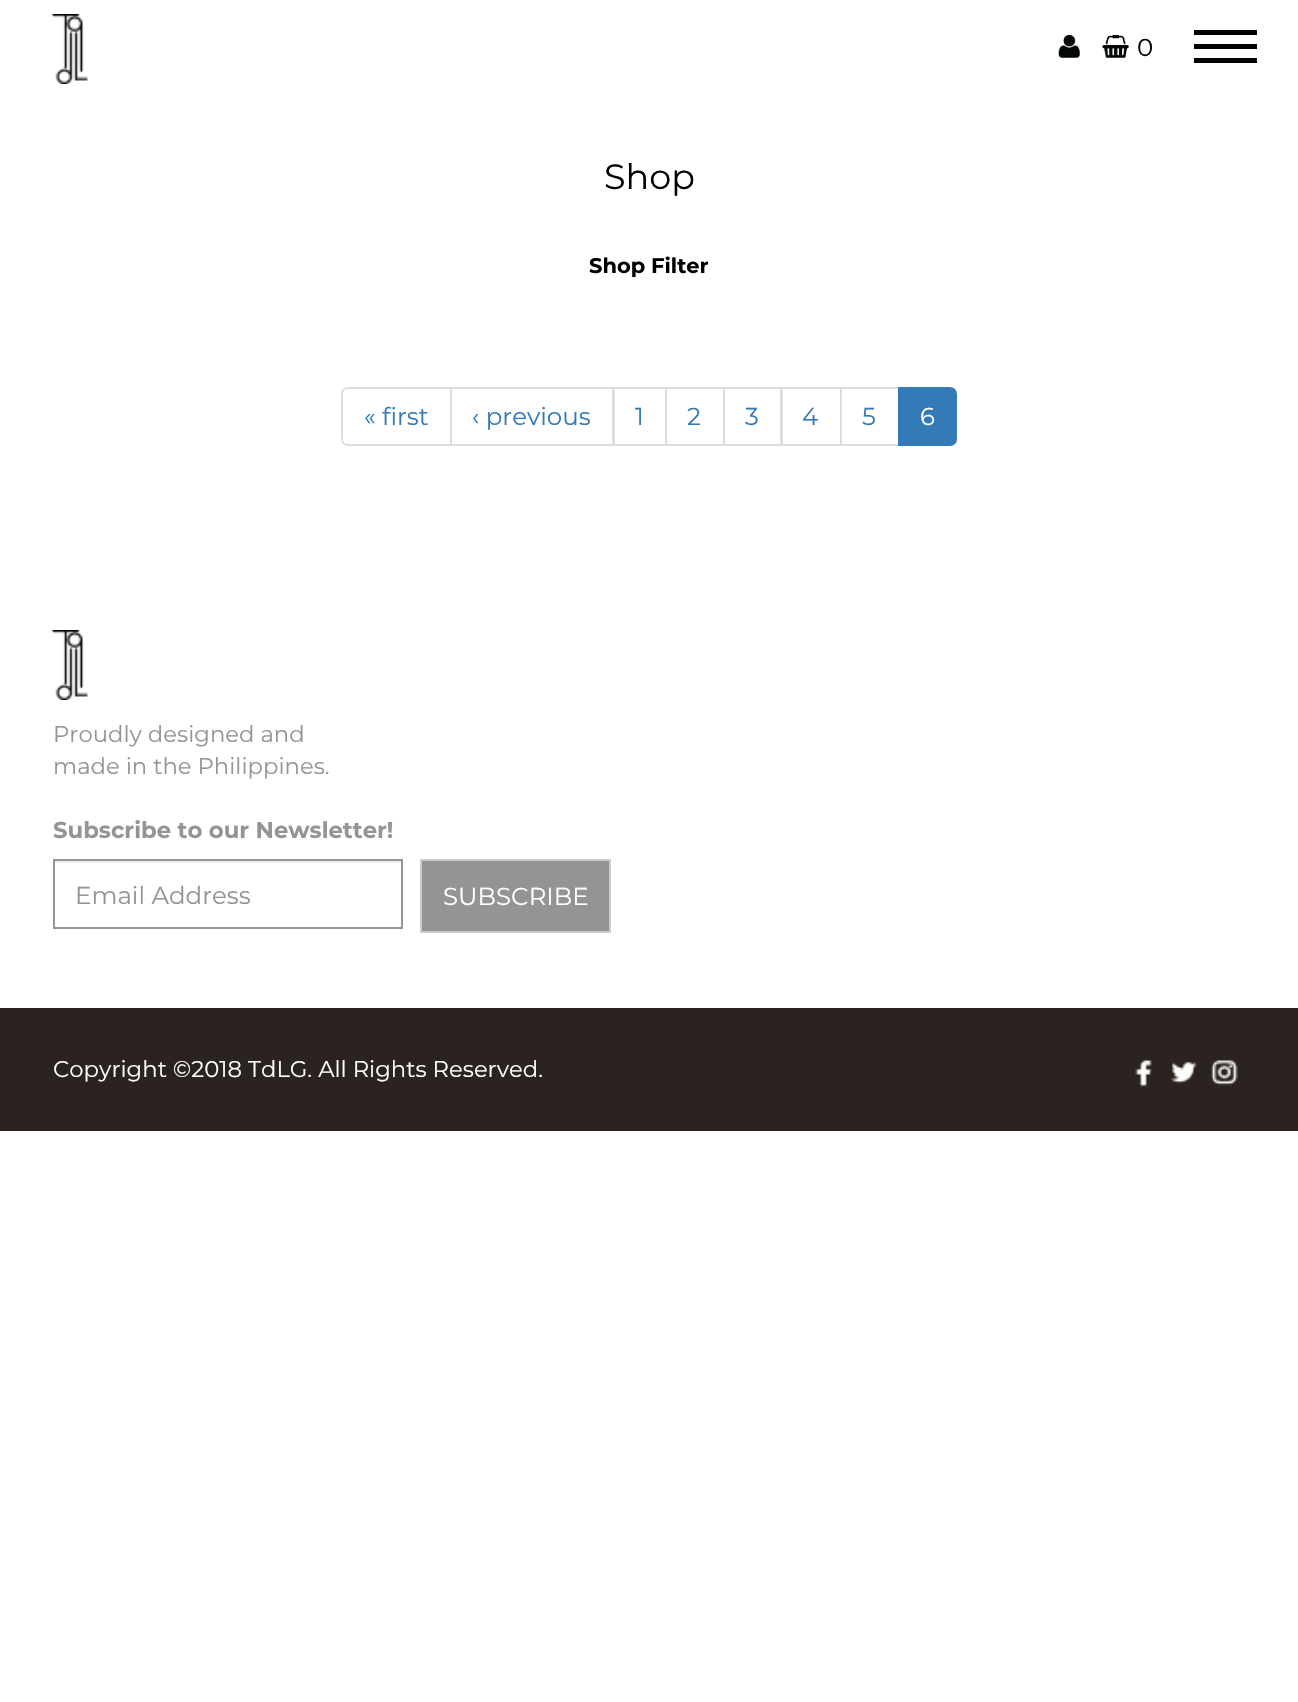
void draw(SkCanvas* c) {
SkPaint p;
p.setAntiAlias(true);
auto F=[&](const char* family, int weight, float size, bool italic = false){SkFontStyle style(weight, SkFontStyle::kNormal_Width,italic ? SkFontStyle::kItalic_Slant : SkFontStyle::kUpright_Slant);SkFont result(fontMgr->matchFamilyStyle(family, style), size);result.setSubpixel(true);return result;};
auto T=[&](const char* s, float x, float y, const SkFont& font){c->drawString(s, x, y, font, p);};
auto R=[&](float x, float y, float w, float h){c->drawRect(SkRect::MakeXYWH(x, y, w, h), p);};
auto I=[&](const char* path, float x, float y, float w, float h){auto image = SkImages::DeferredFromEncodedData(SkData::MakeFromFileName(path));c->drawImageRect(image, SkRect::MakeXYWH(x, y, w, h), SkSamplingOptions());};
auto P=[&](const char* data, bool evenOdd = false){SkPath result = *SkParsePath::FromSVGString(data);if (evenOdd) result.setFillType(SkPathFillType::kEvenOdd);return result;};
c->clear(0xffffffff);
I("1.png",52,14,36,70);
I("2.png",1058,35,22,23);
I("3.png",1102,35,27,23);
auto f1 = F("Montserrat",400,24.5);
p.setColor(0xff000000);
T("0",1137,56,f1);
R(1194,30,63,5);
R(1194,44,63,5);
R(1194,58,63,5);
auto f2 = F("Montserrat",400,35);
T("Shop",604,189,f2);
auto f3 = F("Montserrat",700,21);
T("Shop Filter",589,273,f3);
p.setStroke(true);
p.setStrokeWidth(2);
p.setColor(0xffdddddd);
c->drawPath(P("M348 388h103v57h-103c-3.5 0-6-2.5-6-6v-45c0-3.5 2.5-6 6-6z"),p);
p.setStroke(false);
p.setColor(0xff337ab7);
T("« first",364,425,f1);
p.setStroke(true);
p.setColor(0xffdddddd);
c->drawRect(SkRect::MakeXYWH(451,388,162,57),p);
p.setStroke(false);
p.setColor(0xff337ab7);
T("‹ previous",472,425,f1);
p.setStroke(true);
p.setColor(0xffdddddd);
c->drawRect(SkRect::MakeXYWH(614,388,52,57),p);
p.setStroke(false);
p.setColor(0xff337ab7);
T("1",635,425,f1);
p.setStroke(true);
p.setColor(0xffdddddd);
c->drawRect(SkRect::MakeXYWH(666,388,58,57),p);
p.setStroke(false);
p.setColor(0xff337ab7);
T("2",687,425,f1);
p.setStroke(true);
p.setColor(0xffdddddd);
c->drawRect(SkRect::MakeXYWH(724,388,57,57),p);
p.setStroke(false);
p.setColor(0xff337ab7);
T("3",745,425,f1);
p.setStroke(true);
p.setColor(0xffdddddd);
c->drawRect(SkRect::MakeXYWH(782,388,59,57),p);
p.setStroke(false);
p.setColor(0xff337ab7);
T("4",802,425,f1);
p.setStroke(true);
p.setColor(0xffdddddd);
c->drawRect(SkRect::MakeXYWH(841,388,58,57),p);
p.setStroke(false);
p.setColor(0xff337ab7);
T("5",862,425,f1);
c->drawPath(P("M899 388h51c3.5 0 6 2.5 6 6v45c0 3.5-2.5 6-6 6h-51z"),p);
p.setStroke(true);
c->drawPath(P("M899 388h51c3.5 0 6 2.5 6 6v45c0 3.5-2.5 6-6 6h-51z"),p);
p.setStroke(false);
p.setColor(0xffffffff);
T("6",920,425,f1);
I("1.png",52,630,36,70);
auto f4 = F("Montserrat",400,22.75);
p.setColor(0xff949494);
T("Proudly designed and",53,742,f4);
T("made in the Philippines.",53,774,f4);
auto f5 = F("Montserrat",700,22.75);
T("Subscribe to our Newsletter!",53,838,f5);
p.setColor(0xffececec);
R(54,861,347,2);
p.setStroke(true);
p.setColor(0xff949494);
c->drawRect(SkRect::MakeXYWH(54,860,348,68),p);
p.setStroke(false);
T("Email Address",75,904,f1);
c->drawRect(SkRect::MakeXYWH(421,860,189,72),p);
p.setStroke(true);
p.setColor(0xffcccccc);
c->drawRect(SkRect::MakeXYWH(421,860,189,72),p);
p.setStroke(false);
p.setColor(0xffffffff);
T("SUBSCRIBE",443,905,f1);
p.setColor(0xff2b231f);
R(0,1008,1298,123);
p.setColor(0xffffffff);
T("Copyright ©2018 TdLG. All Rights Reserved.",53,1077,f4);
I("4.png",1135,1060,17,27);
I("5.png",1170,1061,28,23);
I("6.png",1211,1060,27,26);
}
